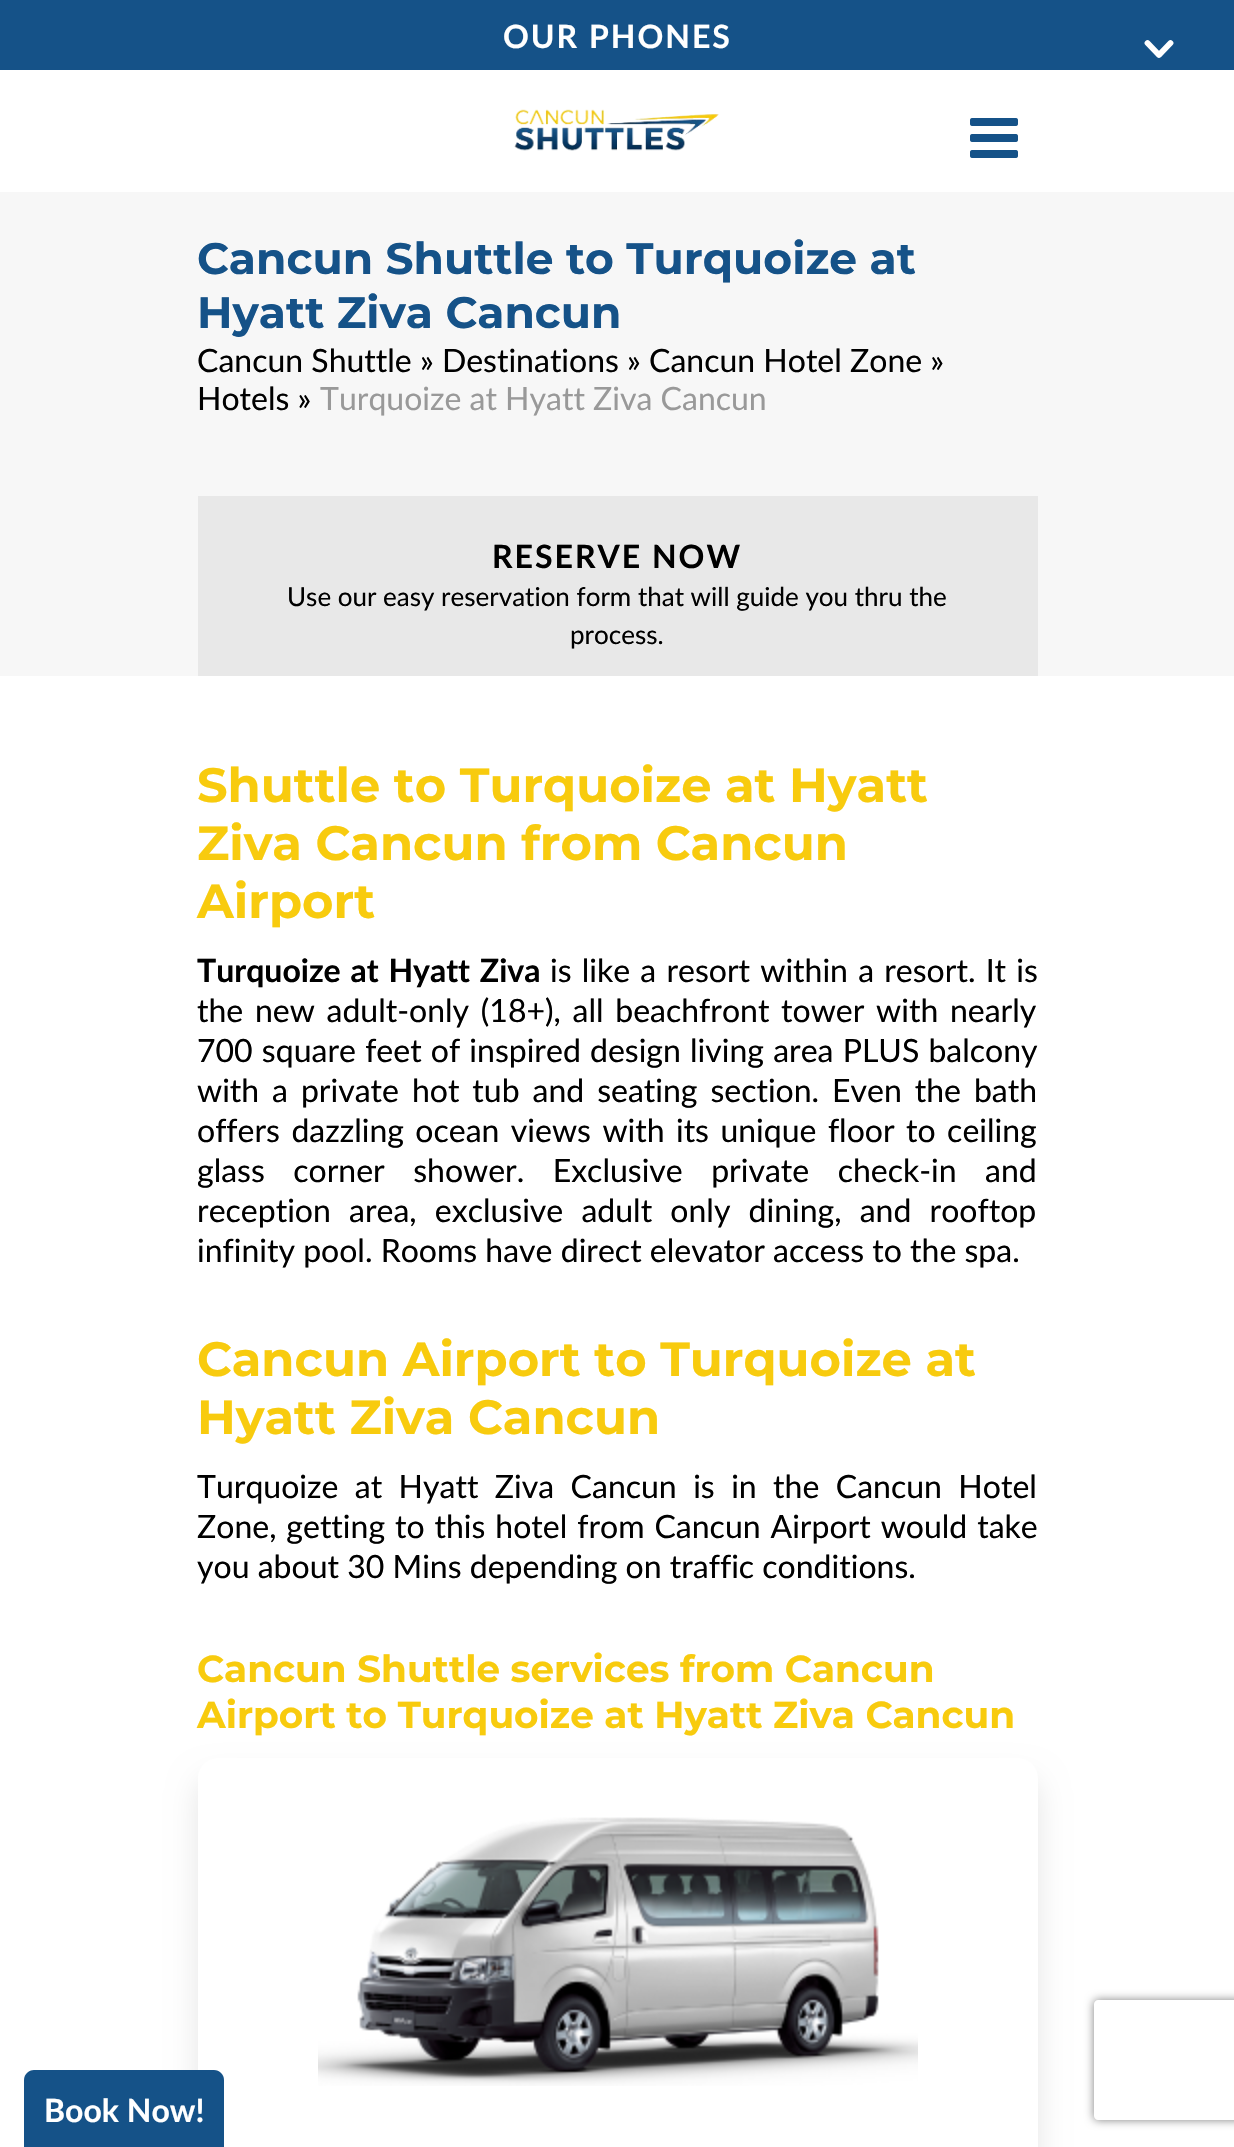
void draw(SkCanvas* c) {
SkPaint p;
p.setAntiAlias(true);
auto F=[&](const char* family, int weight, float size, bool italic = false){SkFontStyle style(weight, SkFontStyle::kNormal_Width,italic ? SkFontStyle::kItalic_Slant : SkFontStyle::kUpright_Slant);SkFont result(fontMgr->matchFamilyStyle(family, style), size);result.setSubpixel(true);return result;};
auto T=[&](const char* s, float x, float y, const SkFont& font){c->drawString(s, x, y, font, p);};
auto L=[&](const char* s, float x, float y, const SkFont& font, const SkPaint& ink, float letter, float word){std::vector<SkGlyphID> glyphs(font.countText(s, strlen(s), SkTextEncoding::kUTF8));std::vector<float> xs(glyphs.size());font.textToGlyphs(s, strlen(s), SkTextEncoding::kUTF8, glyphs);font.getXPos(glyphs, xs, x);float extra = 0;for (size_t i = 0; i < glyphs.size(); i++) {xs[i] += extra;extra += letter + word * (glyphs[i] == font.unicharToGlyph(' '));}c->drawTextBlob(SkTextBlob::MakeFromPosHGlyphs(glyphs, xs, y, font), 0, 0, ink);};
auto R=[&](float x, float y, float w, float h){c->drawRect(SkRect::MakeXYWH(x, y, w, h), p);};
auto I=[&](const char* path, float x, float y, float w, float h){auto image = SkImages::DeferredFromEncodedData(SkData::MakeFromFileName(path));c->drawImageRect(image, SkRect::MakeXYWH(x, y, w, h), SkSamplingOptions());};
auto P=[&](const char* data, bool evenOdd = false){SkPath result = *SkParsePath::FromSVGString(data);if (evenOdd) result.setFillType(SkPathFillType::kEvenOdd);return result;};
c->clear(0xffffffff);
p.setColor(0xff155288);
R(0,0,1234,70);
auto f1 = F("Lato",700,32);
p.setColor(0xffffffff);
L("OUR PHONES",503,48,f1,p,2,0);
p.setStroke(true);
p.setStrokeWidth(5.8);
p.setStrokeCap(SkPaint::kRound_Cap);
p.setStrokeJoin(SkPaint::kRound_Join);
c->drawPath(P("M1147.5 43l11.5 12l11.5-12"),p);
I("1.png",514,109,205,42);
I("2.png",970,118,48,40);
p.setStroke(false);
p.setColor(0xfff7f7f7);
R(0,192,1234,484);
auto f2 = F("Montserrat",700,44);
p.setColor(0xff155288);
T("Cancun Shuttle to Turquoize at",197,274,f2);
T("Hyatt Ziva Cancun",197,328,f2);
auto f3 = F("Lato",400,32);
p.setColor(0xff000000);
T("Cancun Shuttle » Destinations » Cancun Hotel Zone »",197,372,f3);
T("Hotels »",197,410,f3);
p.setColor(0xff999999);
T("Turquoize at Hyatt Ziva Cancun",320,410,f3);
p.setColor(0xffe8e8e8);
R(198,496,840,180);
p.setColor(0xff000000);
L("RESERVE NOW",492,568,f1,p,2,0);
auto f4 = F("Lato",400,26);
T("Use our easy reservation form that will guide you thru the",287,606,f4);
T("process.",570,644,f4);
auto f5 = F("Montserrat",700,48);
p.setColor(0xfff8cb0e);
T("Shuttle to Turquoize at Hyatt",197,802,f5);
T("Ziva Cancun from Cancun",197,860,f5);
T("Airport",197,918,f5);
p.setColor(0xff000000);
L("Turquoize at Hyatt Ziva",197,982,f1,p,0,2);
L("is like a resort within a resort. It is",550,982,f3,p,0,2);
L("the new adult-only (18+), all beachfront tower with nearly",197,1022,f3,p,0,3.5);
L("700 square feet of inspired design living area PLUS balcony",197,1062,f3,p,0,1);
L("with a private hot tub and seating section. Even the bath",197,1102,f3,p,0,4.75);
L("offers dazzling ocean views with its unique floor to ceiling",197,1142,f3,p,0,3.25);
L("glass corner shower. Exclusive private check-in and",197,1182,f3,p,0,20.25);
L("reception area, exclusive adult only dining, and rooftop",197,1222,f3,p,0,10);
T("infinity pool. Rooms have direct elevator access to the spa.",197,1262,f3);
p.setColor(0xfff8cb0e);
T("Cancun Airport to Turquoize at",197,1376,f5);
T("Hyatt Ziva Cancun",197,1434,f5);
p.setColor(0xff000000);
L("Turquoize at Hyatt Ziva Cancun is in the Cancun Hotel",197,1498,f3,p,0,8.25);
L("Zone, getting to this hotel from Cancun Airport would take",197,1538,f3,p,0,1.75);
T("you about 30 Mins depending on traffic conditions.",197,1578,f3);
auto f6 = F("Montserrat",700,37.4);
p.setColor(0xfff8cb0e);
T("Cancun Shuttle services from Cancun",197,1682,f6);
c->save();
c->clipPath(P("M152 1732h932v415h-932zm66 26h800c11 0 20 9 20 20v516c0 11-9 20-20 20h-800c-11 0-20-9-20-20v-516c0-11 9-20 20-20z",true),true);
p.setColor(0x1a000000);
p.setMaskFilter(SkMaskFilter::MakeBlur(kNormal_SkBlurStyle, 15));
c->drawRoundRect(SkRect::MakeXYWH(198,1778,840,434),20,20,p);
p.setMaskFilter(nullptr);
c->restore();
p.setColor(0xfff8cb0e);
T("Airport to Turquoize at Hyatt Ziva Cancun",197,1728,f6);
I("3.png",318,1817,600,269);
p.setColor(0xff155288);
c->drawPath(P("M34 2070h180c5.5 0 10 4.5 10 10v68h-200v-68c0-5.5 4.5-10 10-10z"),p);
p.setColor(0xffffffff);
T("Book Now!",44,2122,f1);
c->save();
c->clipPath(P("M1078 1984h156v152h-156zm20 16h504c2 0 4 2 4 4v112c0 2-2 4-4 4h-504c-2 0-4-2-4-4v-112c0-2 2-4 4-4z",true),true);
p.setColor(0xff808080);
p.setMaskFilter(SkMaskFilter::MakeBlur(kNormal_SkBlurStyle, 5));
c->drawRoundRect(SkRect::MakeXYWH(1094,2000,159,120),4,4,p);
p.setMaskFilter(nullptr);
c->restore();
}
